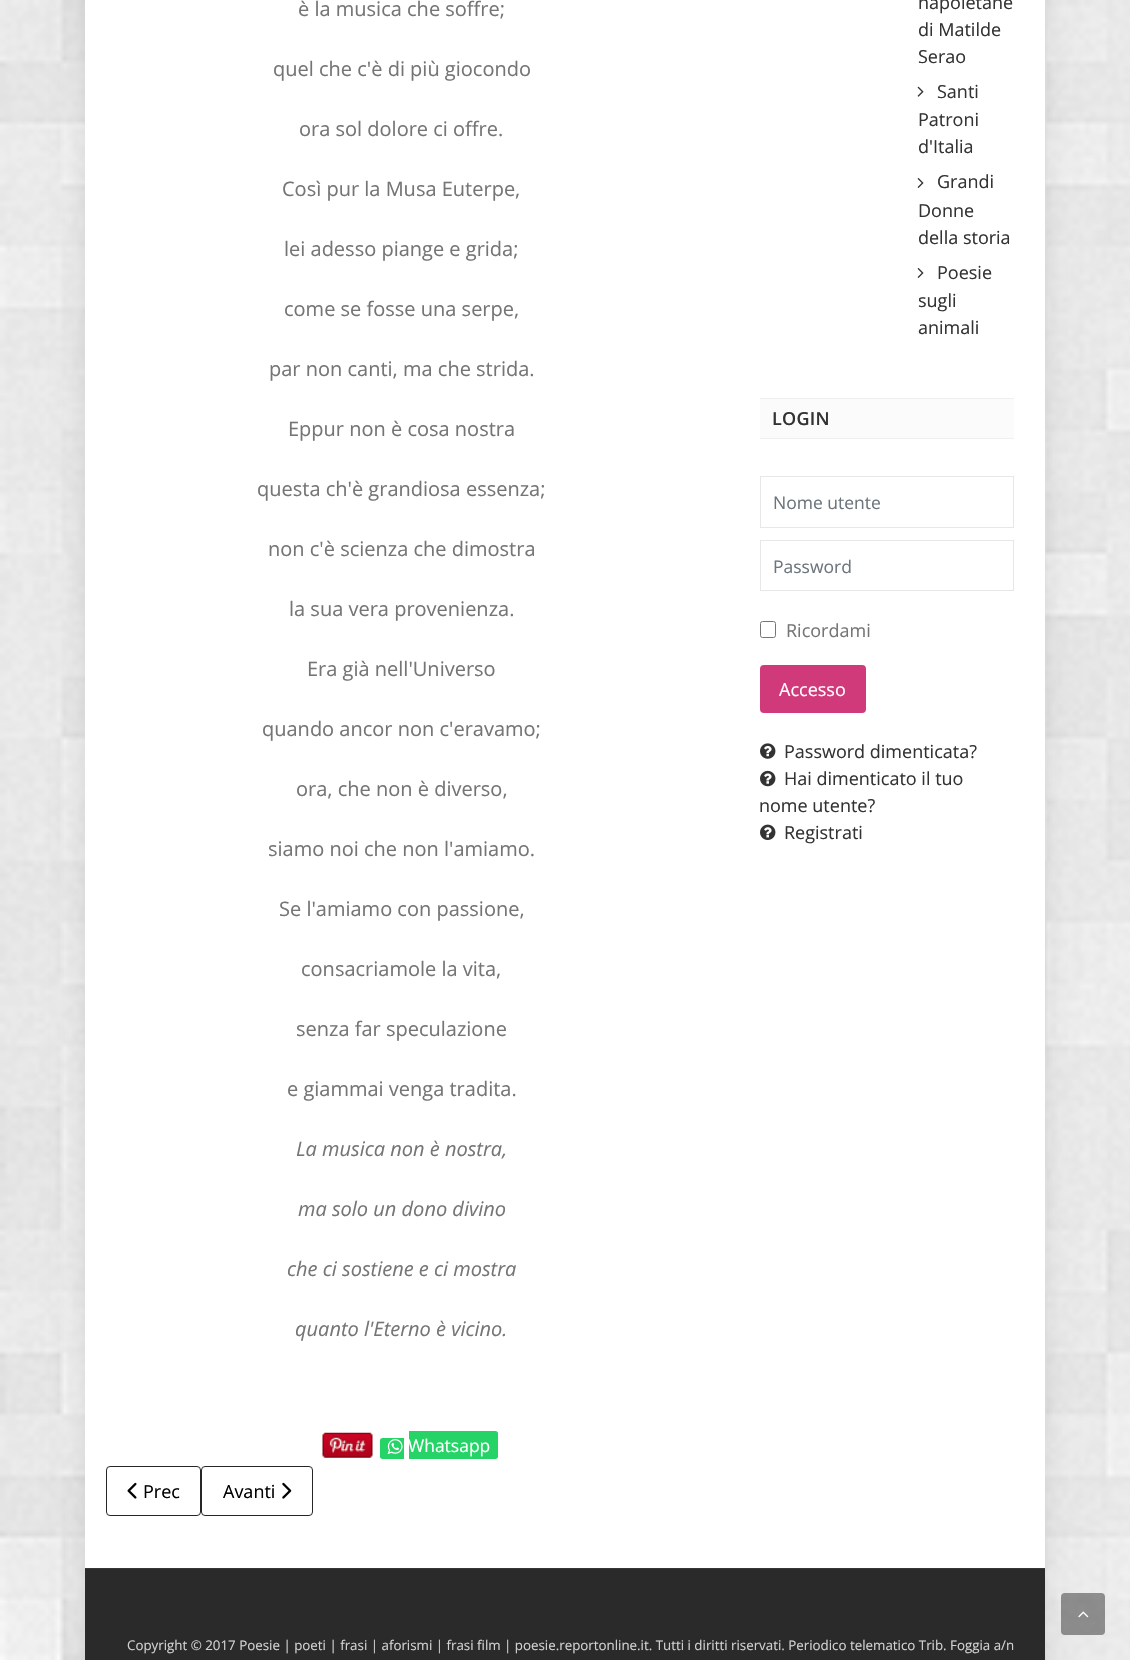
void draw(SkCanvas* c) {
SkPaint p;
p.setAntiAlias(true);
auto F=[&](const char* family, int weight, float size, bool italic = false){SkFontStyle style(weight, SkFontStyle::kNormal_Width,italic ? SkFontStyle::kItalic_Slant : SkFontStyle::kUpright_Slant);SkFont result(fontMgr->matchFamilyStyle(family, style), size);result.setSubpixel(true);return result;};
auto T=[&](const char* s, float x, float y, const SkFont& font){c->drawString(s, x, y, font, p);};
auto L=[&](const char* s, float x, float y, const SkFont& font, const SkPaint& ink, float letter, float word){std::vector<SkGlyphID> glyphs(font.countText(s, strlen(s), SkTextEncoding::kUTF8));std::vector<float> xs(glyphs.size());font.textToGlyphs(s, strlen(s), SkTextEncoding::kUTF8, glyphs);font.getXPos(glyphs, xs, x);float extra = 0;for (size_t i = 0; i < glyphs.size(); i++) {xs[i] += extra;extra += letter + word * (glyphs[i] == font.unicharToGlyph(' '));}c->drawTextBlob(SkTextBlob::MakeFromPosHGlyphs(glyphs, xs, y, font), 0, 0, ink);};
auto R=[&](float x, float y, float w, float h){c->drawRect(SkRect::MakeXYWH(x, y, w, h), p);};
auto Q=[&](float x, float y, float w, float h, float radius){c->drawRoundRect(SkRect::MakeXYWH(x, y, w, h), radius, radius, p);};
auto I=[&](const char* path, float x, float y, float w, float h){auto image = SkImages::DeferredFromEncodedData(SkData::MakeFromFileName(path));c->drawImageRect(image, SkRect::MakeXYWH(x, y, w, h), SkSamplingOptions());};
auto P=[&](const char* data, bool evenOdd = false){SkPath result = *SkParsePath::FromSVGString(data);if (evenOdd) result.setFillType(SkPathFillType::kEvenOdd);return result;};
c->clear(0xffffffff);
I("1.png",0,0,1130,1660);
p.setColor(0x1a000000);
p.setMaskFilter(SkMaskFilter::MakeBlur(kNormal_SkBlurStyle, 12.5));
c->drawRect(SkRect::MakeXYWH(85,-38,960,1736),p);
p.setMaskFilter(nullptr);
p.setColor(0xffffffff);
R(85,0,960,1568);
auto f1 = F("Open Sans",400,20);
p.setColor(0xff757575);
T("è la musica che soffre;",298,16,f1);
T("quel che c'è di più giocondo",273,76,f1);
T("ora sol dolore ci offre.",299,136,f1);
T("Così pur la Musa Euterpe,",282,196,f1);
T("lei adesso piange e grida;",284,256,f1);
T("come se fosse una serpe,",284,316,f1);
T("par non canti, ma che strida.",269,376,f1);
T("Eppur non è cosa nostra",288,436,f1);
T("questa ch'è grandiosa essenza;",257,496,f1);
T("non c'è scienza che dimostra",268,556,f1);
T("la sua vera provenienza.",289,616,f1);
T("Era già nell'Universo",307,676,f1);
T("quando ancor non c'eravamo;",262,736,f1);
T("ora, che non è diverso,",296,796,f1);
T("siamo noi che non l'amiamo.",268,856,f1);
T("Se l'amiamo con passione,",279,916,f1);
T("consacriamole la vita,",301,976,f1);
T("senza far speculazione",296,1036,f1);
T("e giammai venga tradita.",287,1096,f1);
auto f2 = F("Open Sans",400,20,true);
T("La musica non è nostra,",296,1156,f2);
T("ma solo un dono divino",298,1216,f2);
T("che ci sostiene e ci mostra",287,1276,f2);
T("quanto l'Eterno è vicino.",295,1336,f2);
I("2.png",322,1432,51,26);
p.setColor(0xff25d366);
c->drawPath(P("M382.5 1438h21.5v21h-21.5c-1.5 0-2.5-1-2.5-2.5v-16c0-1.5 1-2.5 2.5-2.5z"),p);
I("3.png",387,1439,16,16);
c->drawPath(P("M409 1431h86.5c1.5 0 2.5 1 2.5 2.5v23c0 1.5-1 2.5-2.5 2.5h-86.5z"),p);
auto f3 = F("Open Sans",400,17.5);
p.setColor(0xffffffff);
T("Whatsapp",408,1452,f3);
p.setStroke(true);
p.setStrokeWidth(1);
p.setColor(0xff262626);
c->drawRoundRect(SkRect::MakeXYWH(106.5,1466.5,94,49),3.5,3.5,p);
I("4.png",127,1482,10,17);
auto f4 = F("Open Sans",400,18);
p.setStroke(false);
p.setColor(0xff000000);
T("Prec",143,1498,f4);
p.setStroke(true);
p.setColor(0xff262626);
c->drawRoundRect(SkRect::MakeXYWH(201.5,1466.5,111,49),3.5,3.5,p);
p.setStroke(false);
p.setColor(0xff000000);
T("Avanti",223,1498,f4);
I("5.png",282,1482,10,17);
p.setColor(0xff333333);
T("napoletane",918,9,f4);
T("di Matilde",918,36,f4);
T("Serao",918,63,f4);
I("6.png",917,86,7,11);
T("Santi",937,98,f4);
T("Patroni",918,126,f4);
T("d'Italia",918,153,f4);
I("7.png",917,178,7,10);
T("Grandi",937,188,f4);
T("Donne",918,217,f4);
T("della storia",918,244,f4);
I("7.png",917,268,7,10);
T("Poesie",937,279,f4);
T("sugli",918,307,f4);
T("animali",918,334,f4);
p.setColor(0xfffbfbfb);
R(760,399,254,39);
p.setColor(0xffefefef);
R(760,398,254,1);
R(760,438,254,1);
auto f5 = F("Open Sans",600,18);
p.setColor(0xff333333);
L("LOGIN",772,425,f5,p,.25,0);
p.setStroke(true);
p.setColor(0xffe7e7e7);
c->drawRect(SkRect::MakeXYWH(760.5,476.5,253,51),p);
p.setStroke(false);
p.setColor(0xff6c757d);
T("Nome utente",773,509,f3);
p.setStroke(true);
p.setColor(0xffe7e7e7);
c->drawRect(SkRect::MakeXYWH(760.5,540.5,253,50),p);
p.setStroke(false);
p.setColor(0xff6c757d);
T("Password",773,573,f3);
p.setStroke(true);
p.setColor(0xff767676);
c->drawRoundRect(SkRect::MakeXYWH(760.5,621.5,15,16),2,2,p);
p.setStroke(false);
p.setColor(0xff757575);
T("Ricordami",786,637,f4);
p.setColor(0xffd13a7a);
Q(760,665,106,48,4);
p.setColor(0xffffffff);
T("Accesso",779,696,f4);
I("8.png",760,743,16,16);
p.setColor(0xff333333);
T("Password dimenticata?",784,758,f4);
I("9.png",760,770,16,17);
T("Hai dimenticato il tuo",784,785,f4);
T("nome utente?",759,812,f4);
I("10.png",760,824,16,16);
T("Registrati",784,839,f4);
p.setColor(0xff2a2a2a);
R(85,1569,960,91);
p.setColor(0xff373737);
R(85,1568,960,1);
auto f6 = F("Open Sans",400,13.33);
p.setColor(0xffd1d1d1);
T("Copyright © 2017 Poesie | poeti | frasi | aforismi | frasi film | poesie.reportonline.it. Tutti i diritti riservati. Periodico telematico Trib. Foggia a/n",127,1650,f6);
p.setColor(0x66000000);
Q(1061,1593,44,42,4);
I("11.png",1078,1611,11,7);
}
